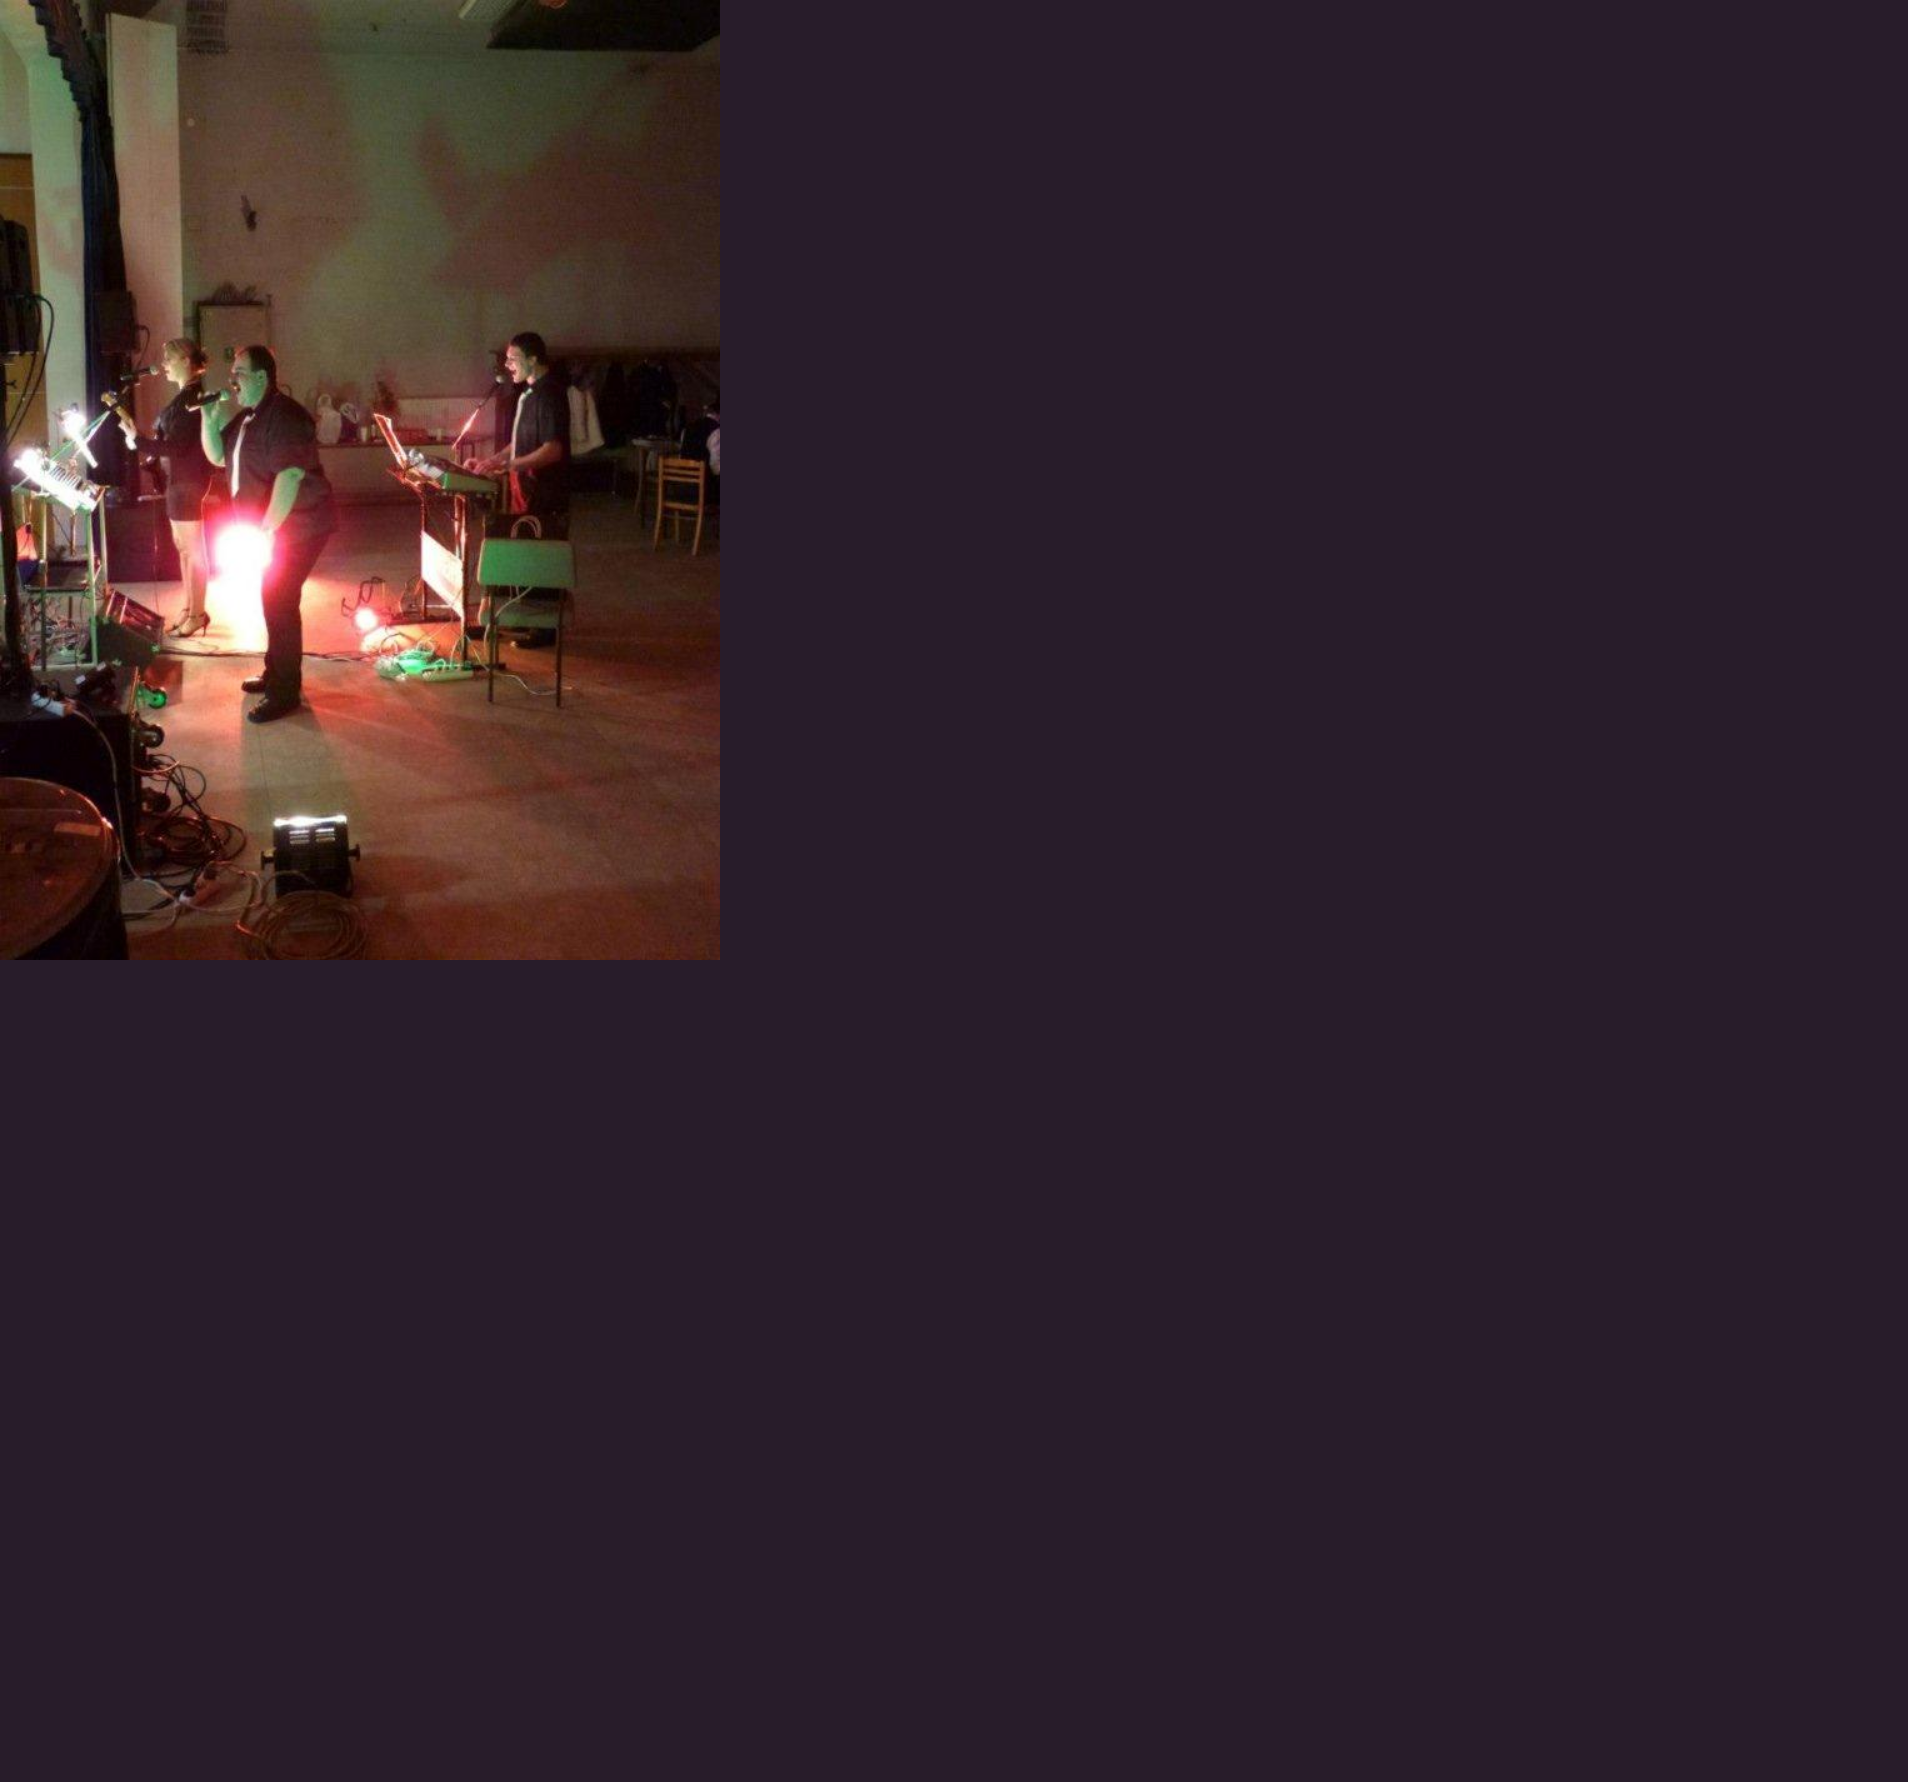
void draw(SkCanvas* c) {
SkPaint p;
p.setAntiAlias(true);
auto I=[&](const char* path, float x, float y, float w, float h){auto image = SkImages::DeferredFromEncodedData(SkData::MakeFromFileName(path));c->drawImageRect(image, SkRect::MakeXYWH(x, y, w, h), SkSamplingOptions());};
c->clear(0xff281c2a);
I("1.png",0,0,720,960);
}
